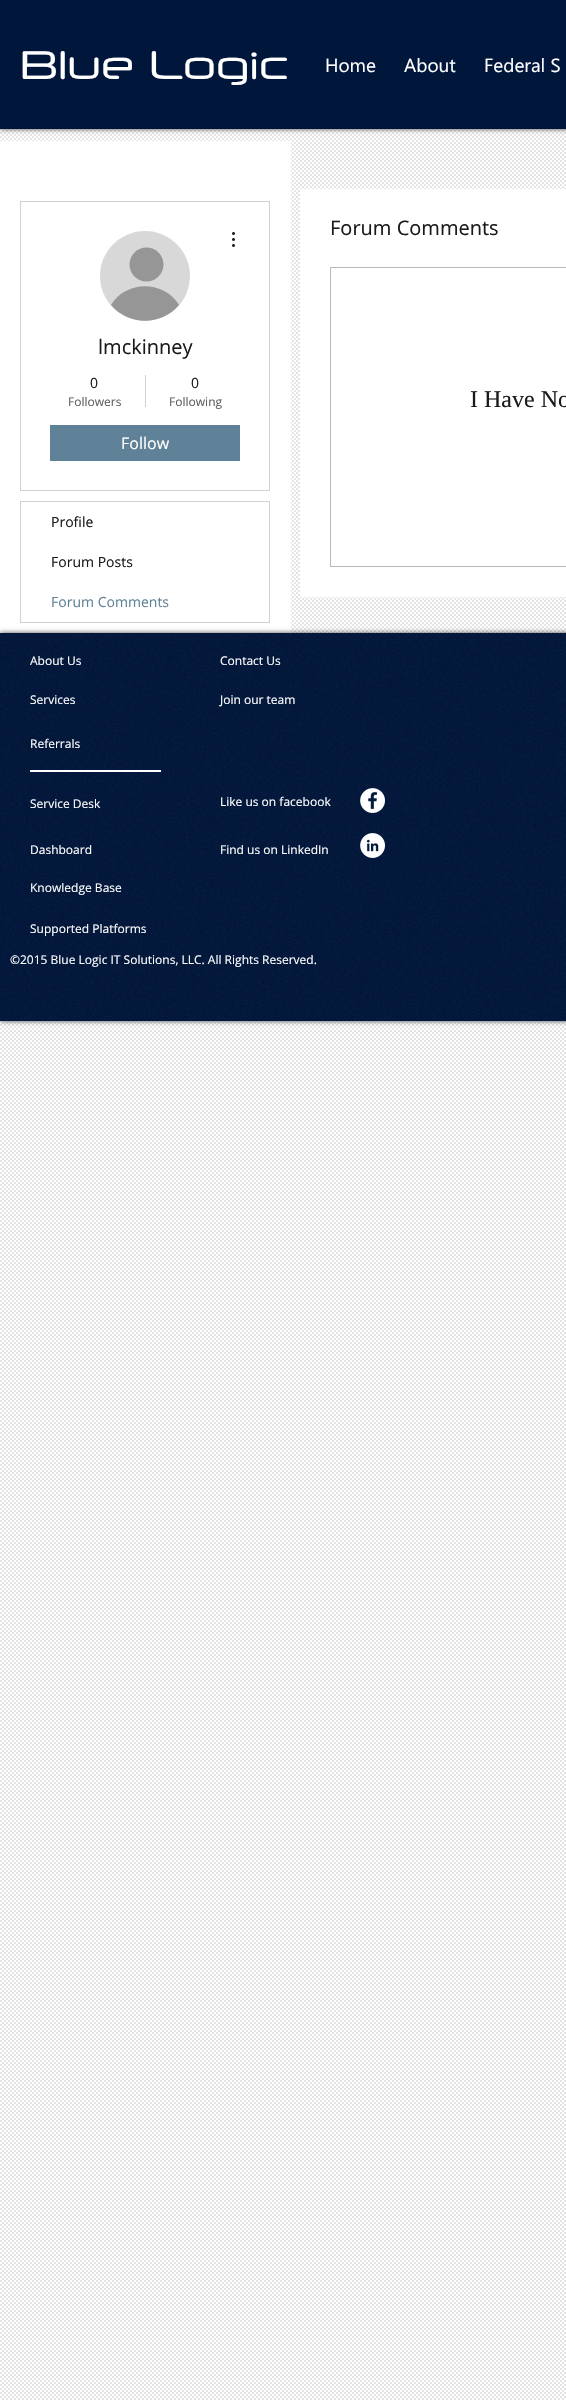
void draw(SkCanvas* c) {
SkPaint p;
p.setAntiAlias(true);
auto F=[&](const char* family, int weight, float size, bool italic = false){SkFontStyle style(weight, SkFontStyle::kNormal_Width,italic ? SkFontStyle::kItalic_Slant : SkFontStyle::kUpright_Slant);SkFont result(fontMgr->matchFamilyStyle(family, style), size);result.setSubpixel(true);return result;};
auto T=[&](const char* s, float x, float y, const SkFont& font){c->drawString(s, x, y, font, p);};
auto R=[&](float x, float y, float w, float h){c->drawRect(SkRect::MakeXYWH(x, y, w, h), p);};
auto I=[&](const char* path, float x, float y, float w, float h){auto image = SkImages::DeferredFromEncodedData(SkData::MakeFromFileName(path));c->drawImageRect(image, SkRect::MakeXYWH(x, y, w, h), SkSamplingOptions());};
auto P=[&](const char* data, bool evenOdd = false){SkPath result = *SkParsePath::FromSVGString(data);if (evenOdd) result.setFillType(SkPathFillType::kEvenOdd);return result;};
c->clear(0xffffffff);
I("5.png",0,129,566,2271);
p.setColor(0xb3000000);
p.setMaskFilter(SkMaskFilter::MakeBlur(kNormal_SkBlurStyle, 2.5));
c->drawRect(SkRect::MakeXYWH(0,0,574,129),p);
p.setMaskFilter(nullptr);
p.setColor(0xff01163b);
R(0,0,566,129);
auto f1 = F("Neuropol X",400,41);
p.setColor(0xffffffff);
T("Blue Logic",20,79,f1);
auto f2 = F("Segoe UI",400,19);
T("Home",325,72,f2);
T("About",404,72,f2);
T("Federal S",484,72,f2);
R(300,189,266,408);
auto f3 = F("Open Sans",400,20);
p.setColor(0xff181a1c);
T("Forum Comments",330,235,f3);
p.setStroke(true);
p.setStrokeWidth(1);
p.setColor(0xffbababb);
c->drawRect(SkRect::MakeXYWH(330.5,267.5,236,299),p);
auto f4 = F("Liberation Serif",400,24);
p.setStroke(false);
p.setColor(0xff181a1c);
T("I Have No",470,407,f4);
p.setColor(0xffffffff);
R(0,141,291,492);
p.setStroke(true);
p.setColor(0xffd1d1d2);
c->drawRect(SkRect::MakeXYWH(20.5,201.5,249,289),p);
p.setStroke(false);
p.setColor(0xffd8d8d8);
c->drawCircle(145,276,45,p);
p.setColor(0xff969696);
c->drawCircle(146.5,264.5,17,p);
c->drawPath(P("M179 305c-18 21-50 21-68 0c15-25 53-25 68 0z"),p);
I("1.png",232,232,3,15);
p.setColor(0xff181a1c);
T("lmckinney",98,354,f3);
auto f5 = F("Open Sans",400,14);
T("0",90,388,f5);
auto f6 = F("Open Sans",400,12);
p.setColor(0xff5d5f60);
T("Followers",68,406,f6);
p.setColor(0xffd1d1d2);
R(145,375,1,32);
p.setColor(0xff181a1c);
T("0",191,388,f5);
p.setColor(0xff5d5f60);
T("Following",169,406,f6);
p.setColor(0xff608299);
R(50,425,190,36);
auto f7 = F("Open Sans",400,16);
p.setColor(0xffffffff);
T("Follow",121,449,f7);
p.setStroke(true);
p.setColor(0xffd1d1d2);
c->drawRect(SkRect::MakeXYWH(20.5,501.5,249,121),p);
p.setStroke(false);
p.setColor(0xff181a1c);
T("Profile",51,527,f5);
T("Forum Posts",51,567,f5);
p.setColor(0xff608299);
T("Forum Comments",51,607,f5);
p.setColor(0xb3000000);
p.setMaskFilter(SkMaskFilter::MakeBlur(kNormal_SkBlurStyle, 2.5));
c->drawRect(SkRect::MakeXYWH(0,633,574,388),p);
p.setMaskFilter(nullptr);
p.setColor(0xff01163b);
R(0,633,566,388);
I("2.png",0,633,566,388);
p.setColor(0xffffffff);
T("About Us",30,665,f6);
T("Contact Us",220,665,f6);
T("Services",30,704,f6);
T("Join our team",220,704,f6);
T("Referrals",30,748,f6);
R(30,770,131,2);
T("Service Desk",30,808,f6);
T("Like us on facebook",220,806,f6);
I("3.png",360,788,25,25);
I("4.png",360,833,25,25);
T("Dashboard",30,854,f6);
T("Find us on LinkedIn",220,854,f6);
T("Knowledge Base",30,892,f6);
T("Supported Platforms",30,933,f6);
T("©2015 Blue Logic IT Solutions, LLC. All Rights Reserved.",10,964,f6);
}
